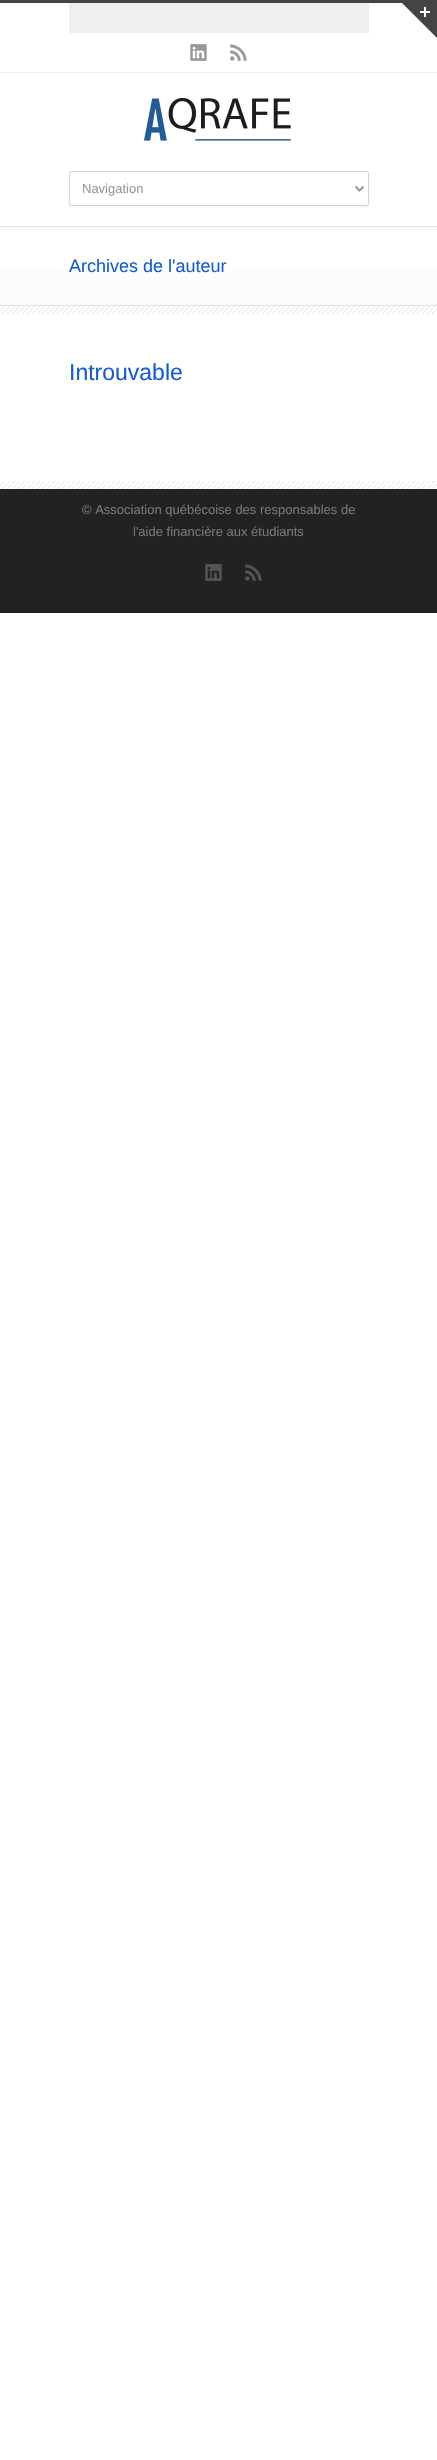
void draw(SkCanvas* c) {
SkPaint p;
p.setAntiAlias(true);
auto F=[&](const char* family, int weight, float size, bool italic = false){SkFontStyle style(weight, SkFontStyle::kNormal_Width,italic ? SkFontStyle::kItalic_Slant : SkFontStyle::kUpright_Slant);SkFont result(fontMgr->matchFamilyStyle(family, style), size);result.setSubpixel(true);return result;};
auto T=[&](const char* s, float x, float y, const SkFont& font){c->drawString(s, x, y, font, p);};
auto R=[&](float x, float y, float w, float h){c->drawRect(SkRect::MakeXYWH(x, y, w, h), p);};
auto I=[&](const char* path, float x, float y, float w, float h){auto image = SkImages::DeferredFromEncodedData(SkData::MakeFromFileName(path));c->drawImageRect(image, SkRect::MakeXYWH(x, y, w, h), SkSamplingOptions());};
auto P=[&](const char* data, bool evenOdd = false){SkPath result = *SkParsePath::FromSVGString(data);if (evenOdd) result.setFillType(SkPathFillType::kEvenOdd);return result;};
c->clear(0xffffffff);
p.setColor(0xff444444);
R(0,0,402,3);
c->drawPath(P("M437-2v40l-40-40z"),p);
I("1.png",420,7,10,10);
p.setColor(0xffefefef);
R(0,72,437,1);
R(69,3,300,30);
I("2.png",190,44,17,17);
I("3.png",230,44,17,17);
I("4.png",144,98,148,45);
p.setColor(0x33b4b4b4);
p.setMaskFilter(SkMaskFilter::MakeBlur(kNormal_SkBlurStyle, 1));
c->drawRoundRect(SkRect::MakeXYWH(69,172,300,35),2,2,p);
p.setMaskFilter(nullptr);
p.setColor(0xffffffff);
c->drawRoundRect(SkRect::MakeXYWH(69.5,171.5,299,34),1.5,1.5,p);
p.setStroke(true);
p.setStrokeWidth(1);
p.setColor(0xffd4d4d4);
c->drawRoundRect(SkRect::MakeXYWH(69.5,171.5,299,34),1.5,1.5,p);
p.setStrokeWidth(2);
p.setColor(0xff999999);
c->drawPath(P("M355.5 186.5l4 4l4-4"),p);
auto f1 = F("Liberation Sans",400,13);
p.setStroke(false);
T("Navigation",82,193,f1);
{
const SkColor colors[] = {0xfffafafa,0xffffffff};
const float stops[] = {0,1};
const SkPoint ends[] = {{219,305}, {219,227}};
p.setShader(SkGradientShader::MakeLinear(ends, colors, stops, 2, SkTileMode::kClamp));
p.setAlpha(255);
}
R(0,266,437,39);
p.setShader(nullptr);
p.setColor(0xfffafafa);
R(0,227,437,3);
p.setColor(0xffe4e4e4);
R(0,226,437,1);
R(0,305,437,1);
auto f2 = F("Liberation Sans",400,18);
p.setColor(0xff165cd2);
T("Archives de l'auteur",69,272,f2);
I("5.png",0,306,437,8);
auto f3 = F("Liberation Sans",400,23);
T("Introuvable",69,380,f3);
I("5.png",0,481,437,8);
p.setColor(0xff222222);
R(0,489,437,124);
p.setColor(0xff777777);
T("© Association québécoise des responsables de",82,514,f1);
T("l'aide financière aux étudiants",133,536,f1);
I("6.png",205,564,17,17);
I("7.png",245,564,17,17);
}
